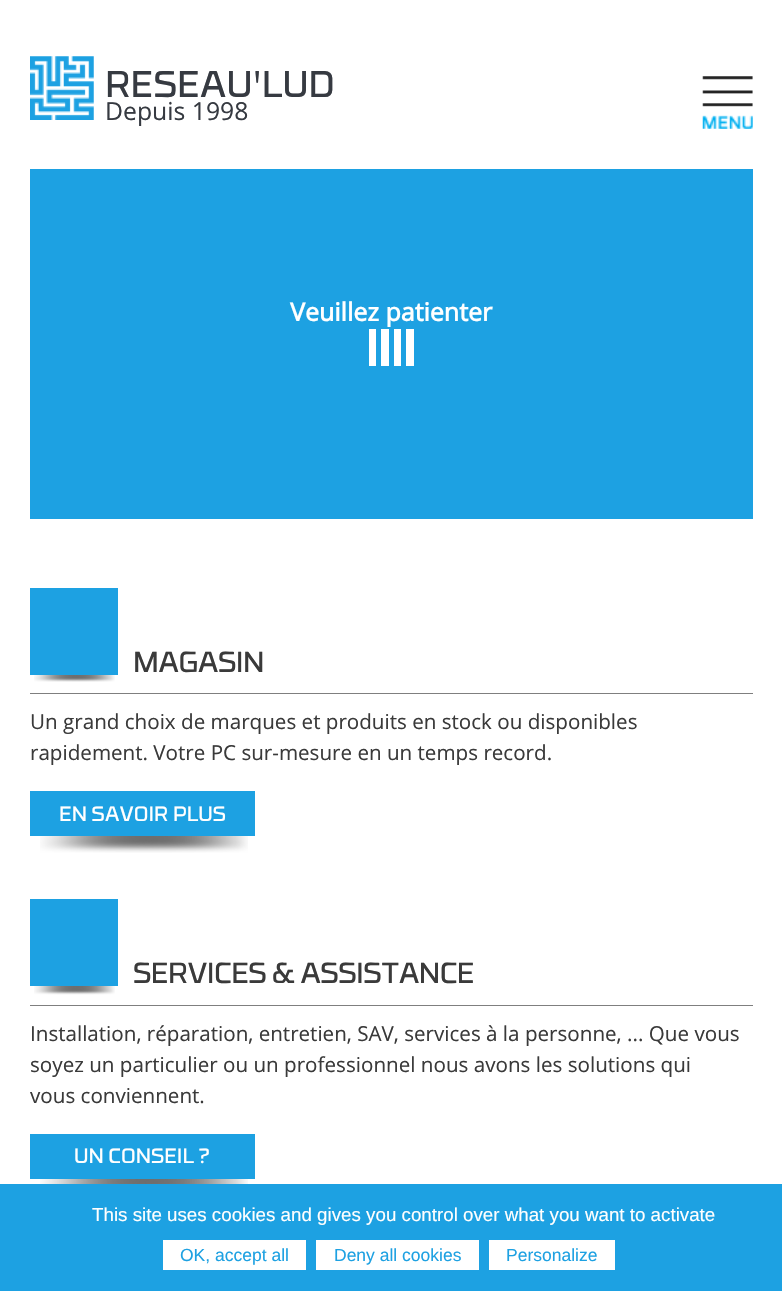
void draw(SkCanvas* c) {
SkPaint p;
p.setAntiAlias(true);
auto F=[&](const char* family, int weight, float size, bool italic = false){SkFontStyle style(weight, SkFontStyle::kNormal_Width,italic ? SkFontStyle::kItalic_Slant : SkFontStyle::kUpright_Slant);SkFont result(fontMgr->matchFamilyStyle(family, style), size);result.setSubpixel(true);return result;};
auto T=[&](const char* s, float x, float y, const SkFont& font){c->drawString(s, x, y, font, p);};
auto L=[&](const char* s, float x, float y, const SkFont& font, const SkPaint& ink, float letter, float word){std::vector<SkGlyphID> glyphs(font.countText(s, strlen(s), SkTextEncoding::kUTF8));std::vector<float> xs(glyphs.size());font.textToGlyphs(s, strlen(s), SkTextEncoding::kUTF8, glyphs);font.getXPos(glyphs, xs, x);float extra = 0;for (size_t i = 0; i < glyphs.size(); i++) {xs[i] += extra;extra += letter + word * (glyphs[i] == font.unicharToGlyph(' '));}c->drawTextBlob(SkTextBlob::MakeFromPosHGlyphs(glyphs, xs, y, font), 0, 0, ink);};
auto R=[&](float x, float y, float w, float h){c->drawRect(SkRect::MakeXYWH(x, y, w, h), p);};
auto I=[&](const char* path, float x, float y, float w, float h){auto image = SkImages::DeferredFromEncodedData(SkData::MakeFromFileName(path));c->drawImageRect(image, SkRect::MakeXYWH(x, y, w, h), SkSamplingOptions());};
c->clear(0xffffffff);
I("1.png",30,56,64,64);
auto f1 = F("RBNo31",400,37);
p.setColor(0xff363a41);
T("RESEAU'LUD",105,97,f1);
auto f2 = F("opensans",400,24.75);
T("Depuis 1998",105,120,f2);
I("2.png",702,76,51,53);
p.setColor(0xff1da1e2);
R(30,169,723,350);
auto f3 = F("opensans",700,25);
p.setColor(0xffffffff);
T("Veuillez patienter",290,321,f3);
R(369,329,7,37);
R(381,329,8,37);
R(394,329,7,37);
R(406,329,8,37);
p.setColor(0xff7f7f7f);
R(30,693,723,1);
p.setColor(0xff1da1e2);
R(30,588,88,87);
I("3.png",34,675,81,7);
auto f4 = F("RBNo31",400,28.9);
p.setColor(0xff3a3a3a);
L("MAGASIN",133,672,f4,p,-.6,0);
auto f5 = F("opensans",400,20.6);
T("Un grand choix de marques et produits en stock ou disponibles",30,729,f5);
T("rapidement. Votre PC sur-mesure en un temps record.",30,760,f5);
p.setColor(0xff1da1e2);
R(30,791,225,45);
auto f6 = F("RBNo31",400,20.6);
p.setColor(0xffffffff);
T("EN SAVOIR PLUS",59,821,f6);
I("4.png",40,836,208,17);
p.setColor(0xff7f7f7f);
R(30,1005,723,1);
p.setColor(0xff1da1e2);
R(30,899,88,87);
I("5.png",34,986,81,9);
p.setColor(0xff3a3a3a);
L("SERVICES & ASSISTANCE",133,983,f4,p,-.6,0);
T("Installation, réparation, entretien, SAV, services à la personne, ... Que vous",30,1041,f5);
T("soyez un particulier ou un professionnel nous avons les solutions qui",30,1072,f5);
T("vous conviennent.",30,1103,f5);
p.setColor(0xff1da1e2);
R(30,1134,225,45);
p.setColor(0xffffffff);
T("UN CONSEIL ?",74,1163,f6);
I("6.png",40,1179,208,5);
p.setColor(0xff1da1e2);
R(0,1184,782,107);
auto f7 = F("Liberation Sans",400,18.75);
p.setColor(0xffffffff);
T("This site uses cookies and gives you control over what you want to activate",92,1221,f7);
R(163,1240,143,30);
auto f8 = F("Liberation Sans",400,17.5);
p.setColor(0xff1da1e2);
T("OK, accept all",180,1261,f8);
p.setColor(0xffffffff);
R(316,1240,163,30);
p.setColor(0xff1da1e2);
T("Deny all cookies",334,1261,f8);
p.setColor(0xffffffff);
R(489,1240,126,30);
p.setColor(0xff1da1e2);
T("Personalize",506,1261,f8);
}
